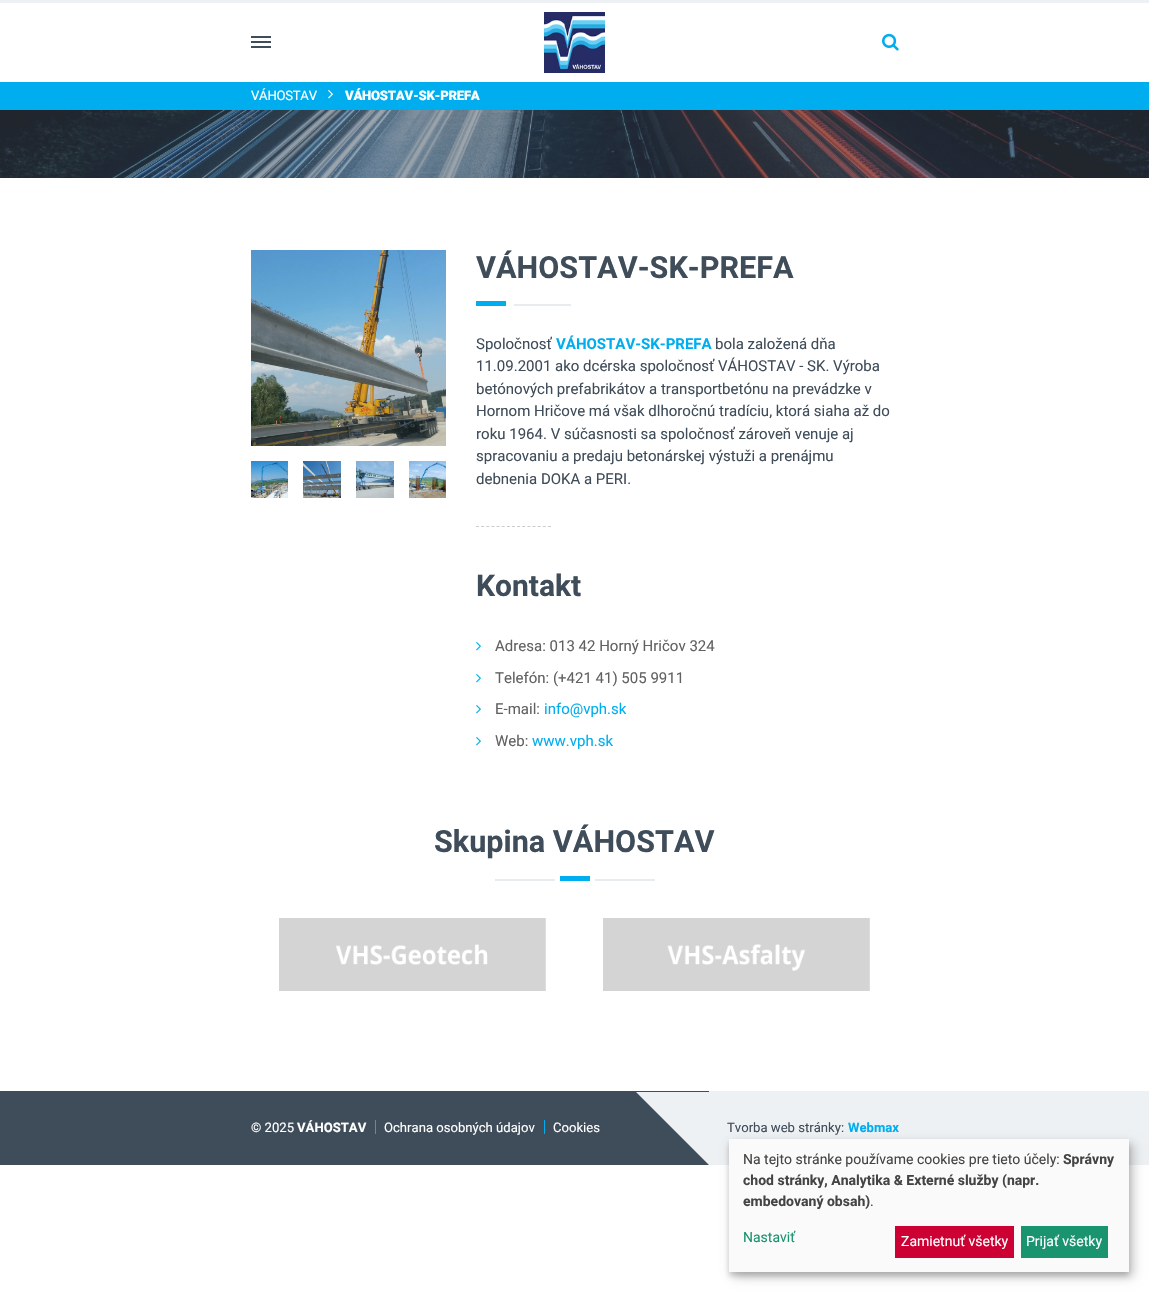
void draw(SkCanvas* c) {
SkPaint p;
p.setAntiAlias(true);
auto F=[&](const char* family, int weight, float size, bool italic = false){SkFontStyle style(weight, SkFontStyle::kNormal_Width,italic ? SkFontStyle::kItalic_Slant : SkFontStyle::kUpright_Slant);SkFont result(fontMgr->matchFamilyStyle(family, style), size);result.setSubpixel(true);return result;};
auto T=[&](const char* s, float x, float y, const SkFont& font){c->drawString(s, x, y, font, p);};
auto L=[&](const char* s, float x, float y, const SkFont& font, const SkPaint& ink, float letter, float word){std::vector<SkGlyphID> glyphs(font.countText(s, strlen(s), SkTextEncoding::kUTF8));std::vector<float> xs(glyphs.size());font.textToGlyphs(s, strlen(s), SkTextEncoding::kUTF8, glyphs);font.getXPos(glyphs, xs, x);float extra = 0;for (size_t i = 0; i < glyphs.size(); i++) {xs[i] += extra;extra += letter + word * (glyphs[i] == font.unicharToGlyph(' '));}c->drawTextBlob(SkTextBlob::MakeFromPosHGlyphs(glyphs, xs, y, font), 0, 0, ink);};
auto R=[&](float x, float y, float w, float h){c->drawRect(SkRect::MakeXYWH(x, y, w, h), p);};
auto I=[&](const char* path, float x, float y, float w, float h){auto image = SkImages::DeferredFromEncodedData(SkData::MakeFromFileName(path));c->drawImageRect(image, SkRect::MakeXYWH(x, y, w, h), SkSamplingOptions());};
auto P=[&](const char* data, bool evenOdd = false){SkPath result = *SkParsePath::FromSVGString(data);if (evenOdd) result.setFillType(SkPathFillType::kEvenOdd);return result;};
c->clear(0xffffffff);
p.setColor(0xffeef1f3);
R(0,0,1149,3);
p.setColor(0xff3f4c59);
R(251,46,20,2);
R(251,36,20,2);
R(251,41,20,2);
I("1.png",544,12,61,61);
I("2.png",882,33,17,18);
p.setColor(0xff00aeef);
R(0,82,1149,28);
auto f1 = F("Roboto",400,13.1);
p.setColor(0xffffffff);
L("VÁHOSTAV",251,100,f1,p,-.25,0);
I("3.png",328,90,5,9);
auto f2 = F("Roboto",900,13.1);
L("VÁHOSTAV-SK-PREFA",345,100,f2,p,-.25,0);
I("4.png",0,110,1149,68);
I("5.png",251,250,195,196);
I("6.png",251,461,37,37);
I("7.png",303,461,38,37);
I("8.png",356,461,38,37);
I("9.png",409,461,37,37);
auto f3 = F("Roboto",700,30.6);
p.setColor(0xff3f4c59);
T("VÁHOSTAV-SK-PREFA",476,278,f3);
p.setColor(0xff00aeef);
R(476,301,30,5);
p.setColor(0xffe9ecee);
R(514,304,57,2);
auto f4 = F("Roboto",400,15);
p.setColor(0xff3f4c59);
T("Spoločnosť",476,349,f4);
auto f5 = F("Roboto",700,15);
p.setColor(0xff00aeef);
T("VÁHOSTAV-SK-PREFA",556,349,f5);
p.setColor(0xff3f4c59);
T("bola založená dňa",715,349,f4);
T("11.09.2001 ako dcérska spoločnosť VÁHOSTAV - SK. Výroba",476,371,f4);
T("betónových prefabrikátov a transportbetónu na prevádzke v",476,394,f4);
T("Hornom Hričove má však dlhoročnú tradíciu, ktorá siaha až do",476,416,f4);
T("roku 1964. V súčasnosti sa spoločnosť zároveň venuje aj",476,439,f4);
T("spracovaniu a predaju betonárskej výstuži a prenájmu",476,461,f4);
T("debnenia DOKA a PERI.",476,484,f4);
p.setStroke(true);
p.setStrokeWidth(1);
p.setColor(0xffcccccc);
p.setPathEffect(SkDashPathEffect::Make({{3,2.14f}}, 0));
c->drawPath(P("M476 526.5h75"),p);
p.setPathEffect(nullptr);
auto f6 = F("Roboto",700,30);
p.setStroke(false);
p.setColor(0xff3f4c59);
T("Kontakt",476,596,f6);
I("10.png",476,642,5,9);
p.setColor(0xff616161);
T("Adresa: 013 42 Horný Hričov 324",495,651,f4);
I("10.png",476,674,5,9);
T("Telefón: (+421 41) 505 9911",495,683,f4);
I("10.png",476,705,5,9);
T("E-mail:",495,714,f4);
p.setColor(0xff00aeef);
T("info@vph.sk",544,714,f4);
I("10.png",476,737,5,9);
p.setColor(0xff616161);
T("Web:",495,746,f4);
p.setColor(0xff00aeef);
T("www.vph.sk",532,746,f4);
p.setColor(0xff3f4c59);
T("Skupina VÁHOSTAV",434,852,f3);
p.setColor(0xff00aeef);
R(560,876,30,5);
p.setColor(0xffe9ecee);
R(495,879,60,2);
R(595,879,60,2);
I("11.png",279,918,267,73);
I("12.png",603,918,267,73);
p.setColor(0xff3f4c59);
R(0,1091,709,74);
p.setColor(0xffffffff);
T("© 2025",251,1132,f1);
auto f7 = F("Roboto",700,13.1);
T("VÁHOSTAV",297,1132,f7);
p.setColor(0xff00aeef);
R(375,1120,1,14);
p.setColor(0xffffffff);
T("Ochrana osobných údajov",384,1132,f1);
p.setColor(0xff00aeef);
R(544,1120,1,14);
p.setColor(0xffffffff);
T("Cookies",553,1132,f1);
p.setColor(0xffeef1f3);
R(709,1091,440,74);
c->drawPath(P("M636 1092h73v73z"),p);
p.setColor(0xff3f4c59);
T("Tvorba web stránky:",727,1132,f1);
p.setColor(0xff00aeef);
T("Webmax",848,1132,f7);
p.setColor(0x30000000);
p.setMaskFilter(SkMaskFilter::MakeBlur(kNormal_SkBlurStyle, 5));
c->drawRect(SkRect::MakeXYWH(734,1144,400,133),p);
p.setMaskFilter(nullptr);
p.setColor(0x33000000);
p.setMaskFilter(SkMaskFilter::MakeBlur(kNormal_SkBlurStyle, 3));
c->drawRect(SkRect::MakeXYWH(729,1143,400,133),p);
p.setMaskFilter(nullptr);
p.setColor(0xfffafafa);
R(729,1139,400,133);
auto f8 = F("Roboto",400,14);
p.setColor(0xff444444);
T("Na tejto stránke používame cookies pre tieto účely:",743,1164,f8);
auto f9 = F("Roboto",700,14);
T("Správny",1063,1164,f9);
T("chod stránky, Analytika & Externé služby (napr.",743,1185,f9);
T("embedovaný obsah)",743,1206,f9);
T(".",870,1206,f8);
p.setColor(0xff1a936f);
T("Nastaviť",743,1242,f8);
p.setColor(0xffcc0033);
R(895,1226,119,32);
p.setColor(0xffffffff);
T("Zamietnuť všetky",901,1246,f8);
p.setColor(0xff1a936f);
R(1021,1226,87,32);
p.setColor(0xffffffff);
T("Prijať všetky",1026,1246,f8);
}
